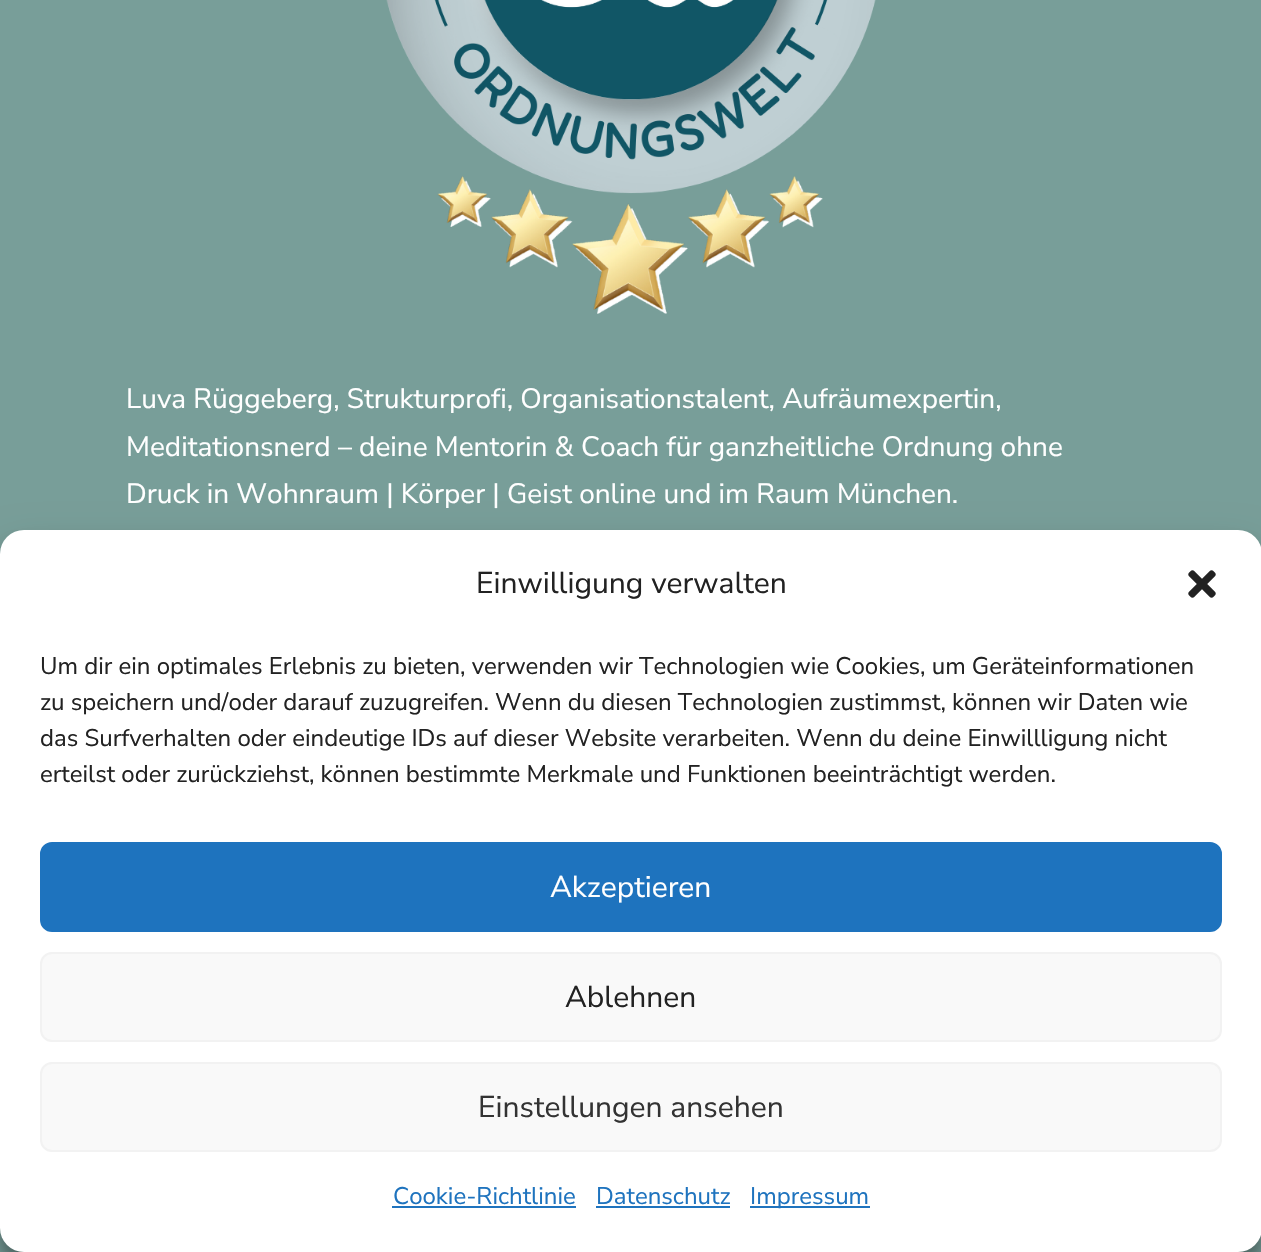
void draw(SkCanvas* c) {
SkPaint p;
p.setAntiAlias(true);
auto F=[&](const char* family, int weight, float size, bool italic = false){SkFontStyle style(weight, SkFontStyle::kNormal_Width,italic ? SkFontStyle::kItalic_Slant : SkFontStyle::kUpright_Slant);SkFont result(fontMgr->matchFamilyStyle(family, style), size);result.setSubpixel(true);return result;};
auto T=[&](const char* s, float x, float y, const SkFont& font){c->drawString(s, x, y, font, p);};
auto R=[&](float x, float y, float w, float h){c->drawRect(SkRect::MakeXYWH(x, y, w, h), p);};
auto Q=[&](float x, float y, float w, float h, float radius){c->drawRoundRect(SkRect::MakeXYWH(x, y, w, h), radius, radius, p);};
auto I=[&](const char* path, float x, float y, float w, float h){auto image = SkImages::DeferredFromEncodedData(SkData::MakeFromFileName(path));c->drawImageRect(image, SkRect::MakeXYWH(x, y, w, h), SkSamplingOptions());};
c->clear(0xff789e99);
I("1.png",386,0,490,314);
auto f1 = F("Nunito Sans",400,28);
p.setColor(0xffffffff);
T("Luva Rüggeberg, Strukturprofi, Organisationstalent, Aufräumexpertin,",126,408,f1);
T("Meditationsnerd – deine Mentorin & Coach für ganzheitliche Ordnung ohne",126,456,f1);
T("Druck in Wohnraum | Körper | Geist online und im Raum München.",126,503,f1);
p.setColor(0x3b000000);
p.setMaskFilter(SkMaskFilter::MakeBlur(kNormal_SkBlurStyle, 6));
c->drawRoundRect(SkRect::MakeXYWH(0,542,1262,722),24,24,p);
p.setMaskFilter(nullptr);
p.setColor(0x30000000);
p.setMaskFilter(SkMaskFilter::MakeBlur(kNormal_SkBlurStyle, 20));
c->drawRoundRect(SkRect::MakeXYWH(0,550,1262,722),24,24,p);
p.setMaskFilter(nullptr);
p.setColor(0xffffffff);
Q(0,530,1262,722,24);
auto f2 = F("Nunito Sans",400,30);
p.setColor(0xff222222);
T("Einwilligung verwalten",476,593,f2);
I("2.png",1188,570,28,28);
auto f3 = F("Nunito Sans",400,24);
T("Um dir ein optimales Erlebnis zu bieten, verwenden wir Technologien wie Cookies, um Geräteinformationen",40,674,f3);
T("zu speichern und/oder darauf zuzugreifen. Wenn du diesen Technologien zustimmst, können wir Daten wie",40,710,f3);
T("das Surfverhalten oder eindeutige IDs auf dieser Website verarbeiten. Wenn du deine Einwillligung nicht",40,746,f3);
T("erteilst oder zurückziehst, können bestimmte Merkmale und Funktionen beeinträchtigt werden.",40,782,f3);
p.setColor(0xff1e73be);
c->drawRoundRect(SkRect::MakeXYWH(41,843,1180,88),11,11,p);
p.setStroke(true);
p.setStrokeWidth(2);
c->drawRoundRect(SkRect::MakeXYWH(41,843,1180,88),11,11,p);
p.setStroke(false);
p.setColor(0xffffffff);
T("Akzeptieren",550,897,f2);
p.setColor(0xfff9f9f9);
c->drawRoundRect(SkRect::MakeXYWH(41,953,1180,88),11,11,p);
p.setStroke(true);
p.setColor(0xfff2f2f2);
c->drawRoundRect(SkRect::MakeXYWH(41,953,1180,88),11,11,p);
p.setStroke(false);
p.setColor(0xff222222);
T("Ablehnen",565,1007,f2);
p.setColor(0xfff9f9f9);
c->drawRoundRect(SkRect::MakeXYWH(41,1063,1180,88),11,11,p);
p.setStroke(true);
p.setColor(0xfff2f2f2);
c->drawRoundRect(SkRect::MakeXYWH(41,1063,1180,88),11,11,p);
p.setStroke(false);
p.setColor(0xff333333);
T("Einstellungen ansehen",478,1117,f2);
p.setColor(0xff1e73be);
T("Cookie-Richtlinie",393,1204,f3);
R(392,1206,184,2);
T("Datenschutz",596,1204,f3);
R(596,1206,134,2);
R(750,1206,120,2);
T("Impressum",750,1204,f3);
}
